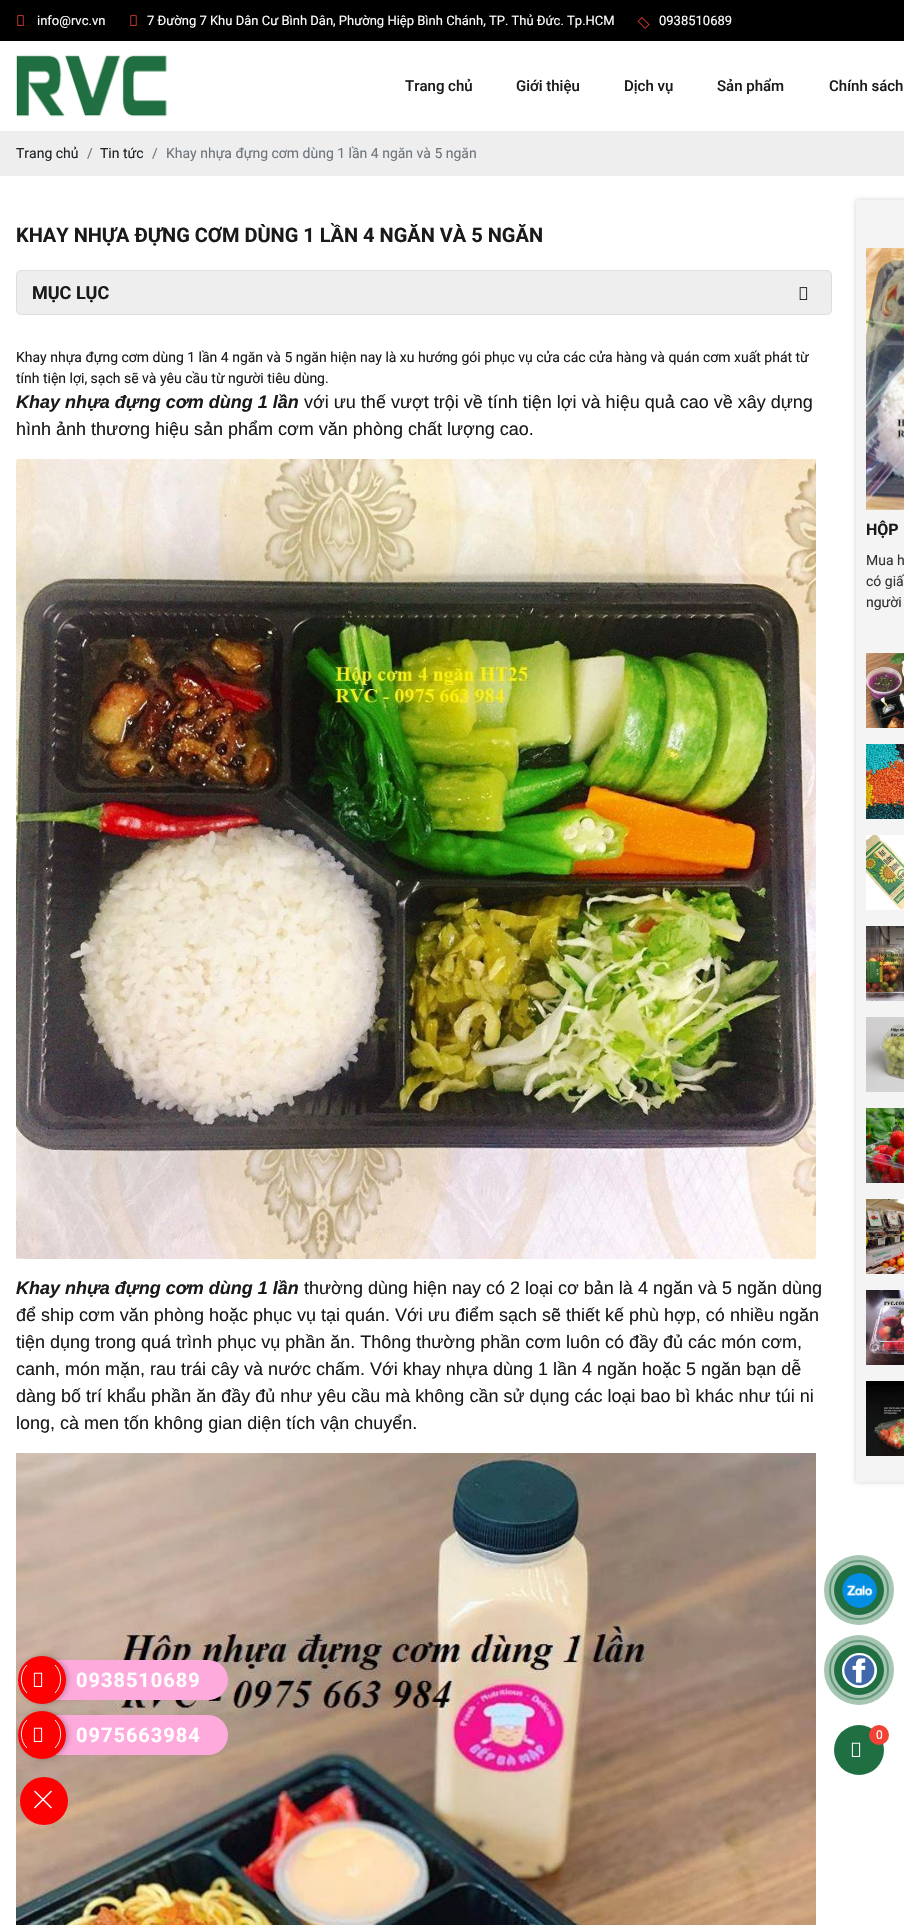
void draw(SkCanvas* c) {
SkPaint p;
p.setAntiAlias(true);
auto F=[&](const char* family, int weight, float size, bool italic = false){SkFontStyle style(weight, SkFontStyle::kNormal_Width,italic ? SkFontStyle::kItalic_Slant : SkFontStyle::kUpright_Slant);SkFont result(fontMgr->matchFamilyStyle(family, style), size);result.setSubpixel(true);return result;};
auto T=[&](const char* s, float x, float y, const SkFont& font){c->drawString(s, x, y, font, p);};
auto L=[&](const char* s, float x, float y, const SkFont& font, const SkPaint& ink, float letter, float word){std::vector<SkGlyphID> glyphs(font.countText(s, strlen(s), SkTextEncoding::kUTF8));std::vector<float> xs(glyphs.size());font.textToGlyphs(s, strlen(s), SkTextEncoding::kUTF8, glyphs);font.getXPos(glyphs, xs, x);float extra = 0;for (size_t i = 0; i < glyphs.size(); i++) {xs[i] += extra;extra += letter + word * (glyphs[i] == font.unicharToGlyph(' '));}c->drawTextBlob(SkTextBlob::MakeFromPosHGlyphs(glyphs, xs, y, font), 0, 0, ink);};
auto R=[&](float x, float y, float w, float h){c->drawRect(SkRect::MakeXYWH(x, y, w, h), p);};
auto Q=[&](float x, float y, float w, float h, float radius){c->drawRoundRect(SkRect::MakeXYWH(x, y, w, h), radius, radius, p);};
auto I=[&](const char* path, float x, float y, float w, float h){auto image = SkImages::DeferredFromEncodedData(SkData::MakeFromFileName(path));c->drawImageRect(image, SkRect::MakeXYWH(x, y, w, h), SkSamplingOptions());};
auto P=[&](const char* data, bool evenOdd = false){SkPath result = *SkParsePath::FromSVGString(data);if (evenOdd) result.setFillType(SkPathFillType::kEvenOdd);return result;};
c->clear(0xffffffff);
p.setColor(0xff000000);
R(0,0,904,41);
I("1.png",17,15,7,11);
auto f1 = F("Roboto",400,13);
p.setColor(0xffffffff);
T("info@rvc.vn",37,25,f1);
I("1.png",130,15,7,11);
T("7 Đường 7 Khu Dân Cư Bình Dân, Phường Hiệp Bình Chánh, TP. Thủ Đức. Tp.HCM",147,25,f1);
I("2.png",637,17,13,12);
T("0938510689",659,25,f1);
I("3.png",16,55,151,62);
auto f2 = F("Roboto",500,15);
p.setColor(0xff1a1a1a);
T("Trang chủ",405,91,f2);
T("Giới thiệu",516,91,f2);
T("Dịch vụ",624,91,f2);
T("Sản phẩm",717,91,f2);
T("Chính sách",829,91,f2);
p.setColor(0xffeeeeee);
R(0,131,904,45);
auto f3 = F("Roboto",400,14);
p.setColor(0xff212529);
T("Trang chủ",16,158,f3);
p.setColor(0xff6c757d);
T("/",87,158,f3);
p.setColor(0xff212529);
T("Tin tức",100,158,f3);
p.setColor(0xff6c757d);
T("/",152,158,f3);
T("Khay nhựa đựng cơm dùng 1 lần 4 ngăn và 5 ngăn",166,158,f3);
auto f4 = F("Roboto",700,20);
p.setColor(0xff1a1a1a);
T("KHAY NHỰA ĐỰNG CƠM DÙNG 1 LẦN 4 NGĂN VÀ 5 NGĂN",16,242,f4);
p.setColor(0xffeeeeee);
c->drawRoundRect(SkRect::MakeXYWH(16.5,270.5,815,44),4.5,4.5,p);
p.setStroke(true);
p.setStrokeWidth(1);
p.setColor(0xffdedede);
c->drawRoundRect(SkRect::MakeXYWH(16.5,270.5,815,44),4.5,4.5,p);
auto f5 = F("Roboto",700,18);
p.setStroke(false);
p.setColor(0xff1a1a1a);
T("MỤC LỤC",32,299,f5);
I("4.png",799,287,9,13);
T("Khay nhựa đựng cơm dùng 1 lần 4 ngăn và 5 ngăn hiện nay là xu hướng gói phục vụ cửa các cửa hàng và quán cơm xuất phát từ",16,362,f3);
T("tính tiện lợi, sạch sẽ và yêu cầu từ người tiêu dùng.",16,383,f3);
auto f6 = F("Liberation Sans",700,18,true);
T("Khay nhựa đựng cơm dùng 1 lần",16,408,f6);
auto f7 = F("Liberation Sans",400,18);
T("với ưu thế vượt trội về tính tiện lợi và hiệu quả cao về xây dựng",304,408,f7);
T("hình ảnh thương hiệu sản phẩm cơm văn phòng chất lượng cao.",16,435,f7);
I("5.png",16,459,800,800);
T("Khay nhựa đựng cơm dùng 1 lần",16,1294,f6);
T("thường dùng hiện nay có 2 loại cơ bản là 4 ngăn và 5 ngăn dùng",304,1294,f7);
T("để ship cơm văn phòng hoặc phục vụ tại quán. Với ưu điểm sạch sẽ thiết kế phù hợp, có nhiều ngăn",16,1321,f7);
T("tiện dụng trong quá trình phục vụ phần ăn. Thông thường phần cơm luôn có đầy đủ các món cơm,",16,1348,f7);
T("canh, món mặn, rau trái cây và nước chấm. Với khay nhựa dùng 1 lần 4 ngăn hoặc 5 ngăn bạn dễ",16,1375,f7);
T("dàng bố trí khẩu phần ăn đầy đủ như yêu cầu mà không cần sử dụng các loại bao bì khác như túi ni",16,1402,f7);
T("long, cà men tốn không gian diện tích vận chuyển.",16,1429,f7);
I("6.png",16,1453,800,472);
p.setColor(0x78999999);
p.setMaskFilter(SkMaskFilter::MakeBlur(kNormal_SkBlurStyle, 2.5));
c->drawRect(SkRect::MakeXYWH(856,200,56,1282),p);
p.setMaskFilter(nullptr);
p.setColor(0xfff4f4f4);
R(856,200,48,1282);
I("7.png",866,248,38,262);
auto f8 = F("Roboto",700,16);
p.setColor(0xff1a1a1a);
T("HỘP",866,535,f8);
p.setColor(0xff333333);
T("Mua h",866,565,f3);
T("có giấ",866,586,f3);
T("người",866,607,f3);
I("8.png",866,653,38,75);
I("9.png",866,744,38,75);
I("10.png",866,835,38,75);
I("11.png",866,926,38,75);
I("12.png",866,1017,38,75);
I("13.png",866,1108,38,75);
I("14.png",866,1199,38,75);
I("15.png",866,1290,38,75);
I("16.png",866,1381,38,75);
p.setColor(0xffffaadd);
Q(18,1660,210,40,20);
p.setColor(0x78000000);
p.setMaskFilter(SkMaskFilter::MakeBlur(kNormal_SkBlurStyle, 3.5));
c->drawRoundRect(SkRect::MakeXYWH(22,1658,44,44),22,22,p);
p.setMaskFilter(nullptr);
p.setColor(0xffff0002);
c->drawCircle(42,1680,24,p);
I("17.png",33,1672,10,15);
p.setStroke(true);
p.setColor(0xfff1f1f1);
c->drawPath(P("M55 1665c7.5 7.5 7.5 20.5 0 28m-28 0c-7.5-7.5-7.5-20.5 0-28"),p);
p.setStroke(false);
p.setColor(0xffffffff);
L("0938510689",76,1687,f4,p,1,0);
p.setColor(0xffffaadd);
Q(18,1715,210,40,20);
p.setColor(0x78000000);
p.setMaskFilter(SkMaskFilter::MakeBlur(kNormal_SkBlurStyle, 3.5));
c->drawRoundRect(SkRect::MakeXYWH(22,1713,44,44),22,22,p);
p.setMaskFilter(nullptr);
p.setColor(0xffff0002);
c->drawCircle(42,1735,24,p);
I("17.png",33,1727,10,15);
p.setStroke(true);
p.setColor(0xfff1f1f1);
c->drawPath(P("M55 1720c7.5 7.5 7.5 20.5 0 28m-28 0c-7.5-7.5-7.5-20.5 0-28"),p);
p.setStroke(false);
p.setColor(0xffffffff);
L("0975663984",76,1742,f4,p,1,0);
p.setColor(0xffff0002);
c->drawCircle(44,1801,24,p);
p.setColor(0xffffffff);
c->drawPath(P("M35 1790.5l17 17l-1 1l-17-17z"),p);
c->drawPath(P("M34 1807.5l17-17l1 1l-17 17z"),p);
p.setStroke(true);
p.setStrokeWidth(2);
p.setColor(0xff90b7a1);
c->drawCircle(859,1590,29,p);
p.setStroke(false);
p.setColor(0x66206f42);
c->drawCircle(859,1590,35,p);
p.setColor(0xff206f42);
c->drawCircle(859,1590,25,p);
I("18.png",842,1573,35,35);
p.setStroke(true);
p.setColor(0xff90b7a1);
c->drawCircle(859,1670,29,p);
p.setStroke(false);
p.setColor(0x66206f42);
c->drawCircle(859,1670,35,p);
p.setColor(0xff206f42);
c->drawCircle(859,1670,25,p);
I("19.png",842,1653,35,35);
c->drawCircle(859,1750,25,p);
p.setColor(0xfff44336);
c->drawCircle(879,1735,10,p);
auto f9 = F("Roboto",400,12);
p.setColor(0xffffffff);
T("0",876,1739,f9);
I("20.png",851,1742,10,15);
}
